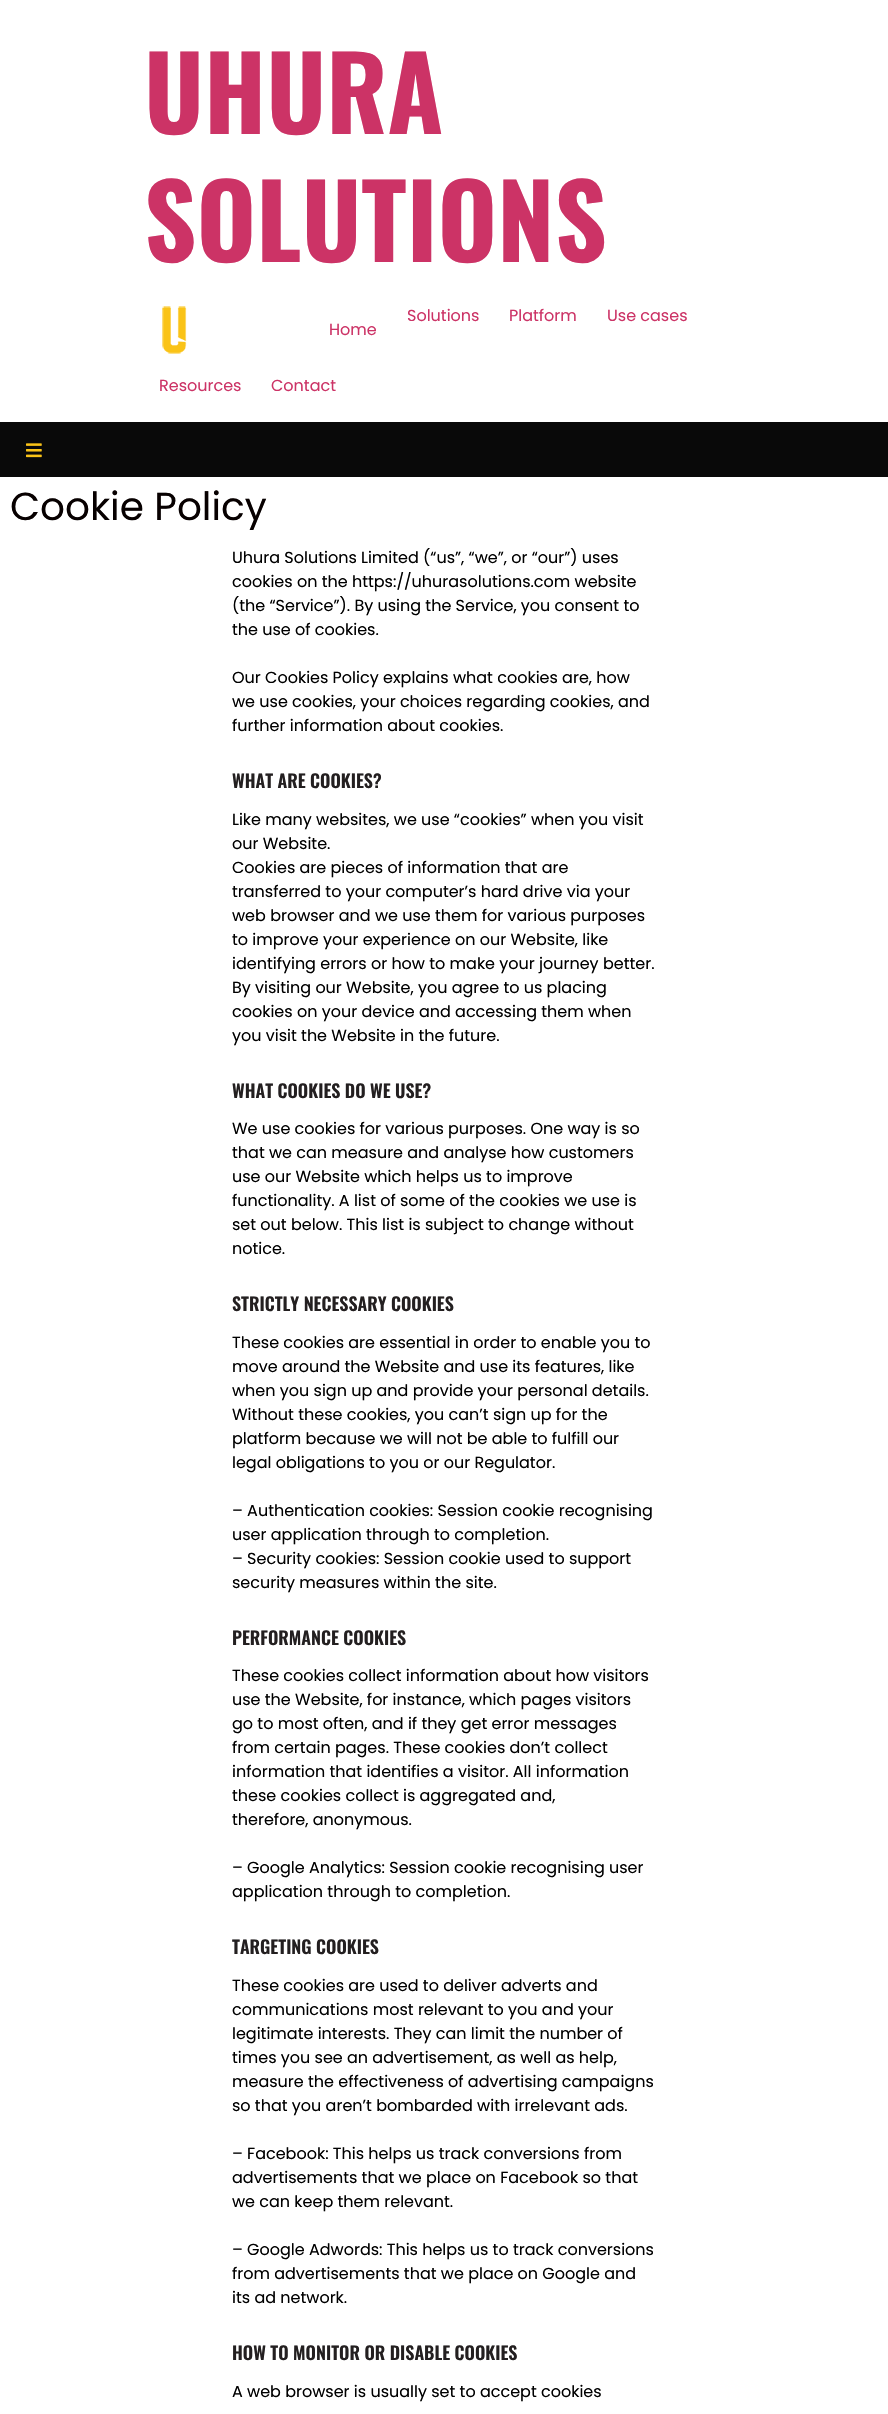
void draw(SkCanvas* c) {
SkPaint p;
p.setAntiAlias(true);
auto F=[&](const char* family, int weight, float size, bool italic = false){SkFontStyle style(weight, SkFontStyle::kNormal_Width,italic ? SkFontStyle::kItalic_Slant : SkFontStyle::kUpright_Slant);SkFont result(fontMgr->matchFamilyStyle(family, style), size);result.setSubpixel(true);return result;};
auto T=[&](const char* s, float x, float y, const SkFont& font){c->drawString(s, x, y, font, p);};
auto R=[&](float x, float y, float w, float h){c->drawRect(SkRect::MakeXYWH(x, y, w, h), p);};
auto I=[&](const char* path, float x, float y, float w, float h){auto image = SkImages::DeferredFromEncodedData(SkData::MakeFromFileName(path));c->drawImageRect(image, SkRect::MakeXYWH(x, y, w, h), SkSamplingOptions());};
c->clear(0xffffffff);
auto f1 = F("Oswald",700,102);
p.setColor(0xffcc3366);
T("UHURA",144,134,f1);
T("SOLUTIONS",144,262,f1);
auto f2 = F("Poppins",400,16);
T("Solutions",407,321,f2);
T("Platform",509,321,f2);
T("Use cases",607,321,f2);
I("1.png",162,306,25,48);
T("Home",329,335,f2);
T("Resources",159,391,f2);
T("Contact",271,391,f2);
p.setColor(0xff090909);
R(0,422,888,55);
I("2.png",26,443,16,15);
auto f3 = F("Poppins",400,39);
p.setColor(0xff070000);
T("Cookie Policy",10,520,f3);
p.setColor(0xff000000);
T("Uhura Solutions Limited (“us”, “we”, or “our”) uses",232,563,f2);
T("cookies on the https://uhurasolutions.com website",232,587,f2);
T("(the “Service”). By using the Service, you consent to",232,611,f2);
T("the use of cookies.",232,635,f2);
T("Our Cookies Policy explains what cookies are, how",232,683,f2);
T("we use cookies, your choices regarding cookies, and",232,707,f2);
T("further information about cookies.",232,731,f2);
auto f4 = F("Oswald",600,18);
p.setColor(0xff231f20);
T("WHAT ARE COOKIES?",232,788,f4);
p.setColor(0xff000000);
T("Like many websites, we use “cookies” when you visit",232,825,f2);
T("our Website.",232,849,f2);
T("Cookies are pieces of information that are",232,873,f2);
T("transferred to your computer’s hard drive via your",232,897,f2);
T("web browser and we use them for various purposes",232,921,f2);
T("to improve your experience on our Website, like",232,945,f2);
T("identifying errors or how to make your journey better.",232,969,f2);
T("By visiting our Website, you agree to us placing",232,993,f2);
T("cookies on your device and accessing them when",232,1017,f2);
T("you visit the Website in the future.",232,1041,f2);
p.setColor(0xff231f20);
T("WHAT COOKIES DO WE USE?",232,1098,f4);
p.setColor(0xff000000);
T("We use cookies for various purposes. One way is so",232,1134,f2);
T("that we can measure and analyse how customers",232,1158,f2);
T("use our Website which helps us to improve",232,1182,f2);
T("functionality. A list of some of the cookies we use is",232,1206,f2);
T("set out below. This list is subject to change without",232,1230,f2);
T("notice.",232,1254,f2);
p.setColor(0xff231f20);
T("STRICTLY NECESSARY COOKIES",232,1311,f4);
p.setColor(0xff000000);
T("These cookies are essential in order to enable you to",232,1348,f2);
T("move around the Website and use its features, like",232,1372,f2);
T("when you sign up and provide your personal details.",232,1396,f2);
T("Without these cookies, you can’t sign up for the",232,1420,f2);
T("platform because we will not be able to fulfill our",232,1444,f2);
T("legal obligations to you or our Regulator.",232,1468,f2);
T("– Authentication cookies: Session cookie recognising",232,1516,f2);
T("user application through to completion.",232,1540,f2);
T("– Security cookies: Session cookie used to support",232,1564,f2);
T("security measures within the site.",232,1588,f2);
p.setColor(0xff231f20);
T("PERFORMANCE COOKIES",232,1645,f4);
p.setColor(0xff000000);
T("These cookies collect information about how visitors",232,1681,f2);
T("use the Website, for instance, which pages visitors",232,1705,f2);
T("go to most often, and if they get error messages",232,1729,f2);
T("from certain pages. These cookies don’t collect",232,1753,f2);
T("information that identifies a visitor. All information",232,1777,f2);
T("these cookies collect is aggregated and,",232,1801,f2);
T("therefore, anonymous.",232,1825,f2);
T("– Google Analytics: Session cookie recognising user",232,1873,f2);
T("application through to completion.",232,1897,f2);
p.setColor(0xff231f20);
T("TARGETING COOKIES",232,1954,f4);
p.setColor(0xff000000);
T("These cookies are used to deliver adverts and",232,1991,f2);
T("communications most relevant to you and your",232,2015,f2);
T("legitimate interests. They can limit the number of",232,2039,f2);
T("times you see an advertisement, as well as help,",232,2063,f2);
T("measure the effectiveness of advertising campaigns",232,2087,f2);
T("so that you aren’t bombarded with irrelevant ads.",232,2111,f2);
T("– Facebook: This helps us track conversions from",232,2159,f2);
T("advertisements that we place on Facebook so that",232,2183,f2);
T("we can keep them relevant.",232,2207,f2);
T("– Google Adwords: This helps us to track conversions",232,2255,f2);
T("from advertisements that we place on Google and",232,2279,f2);
T("its ad network.",232,2303,f2);
p.setColor(0xff231f20);
T("HOW TO MONITOR OR DISABLE COOKIES",232,2360,f4);
p.setColor(0xff000000);
T("A web browser is usually set to accept cookies",232,2397,f2);
}
